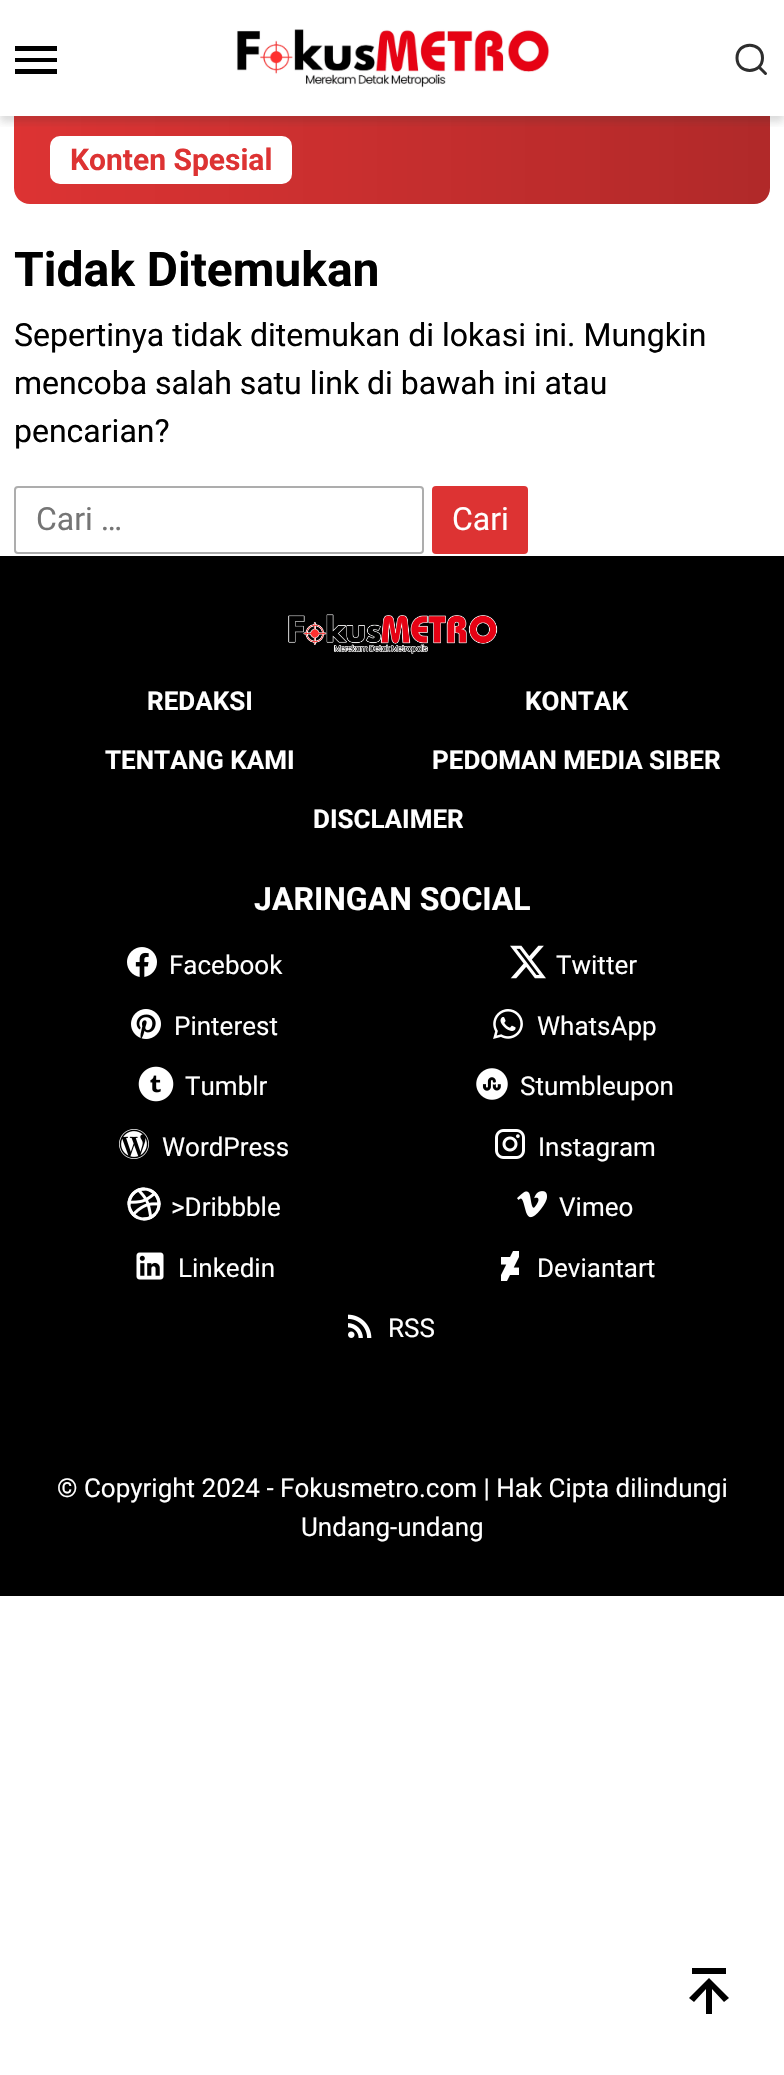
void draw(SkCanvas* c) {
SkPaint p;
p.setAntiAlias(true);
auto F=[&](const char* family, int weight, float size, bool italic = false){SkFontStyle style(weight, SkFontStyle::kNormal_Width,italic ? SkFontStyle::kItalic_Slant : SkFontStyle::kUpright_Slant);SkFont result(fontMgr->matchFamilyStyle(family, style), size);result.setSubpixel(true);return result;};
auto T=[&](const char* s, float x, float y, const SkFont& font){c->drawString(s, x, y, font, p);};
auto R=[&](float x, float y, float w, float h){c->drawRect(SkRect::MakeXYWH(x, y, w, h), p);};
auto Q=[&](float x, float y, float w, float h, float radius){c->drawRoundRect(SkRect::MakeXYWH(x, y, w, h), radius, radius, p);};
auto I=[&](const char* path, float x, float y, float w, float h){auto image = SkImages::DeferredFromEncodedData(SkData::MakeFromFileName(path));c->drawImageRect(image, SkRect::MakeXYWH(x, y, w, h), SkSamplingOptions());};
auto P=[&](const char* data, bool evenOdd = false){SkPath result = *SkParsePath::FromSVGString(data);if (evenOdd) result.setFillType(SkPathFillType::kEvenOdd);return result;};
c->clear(0xffffffff);
p.setColor(0xffdd3333);
c->drawPath(P("M14 116h756v72c0 9-7 16-16 16h-724c-9 0-16-7-16-16z"),p);
{
const SkColor colors[] = {0x00000000,0x33000000};
const float stops[] = {0,1};
const SkPoint ends[] = {{14,160}, {770,160}};
p.setShader(SkGradientShader::MakeLinear(ends, colors, stops, 2, SkTileMode::kClamp));
p.setAlpha(255);
}
c->drawPath(P("M14 116h756v72c0 9-7 16-16 16h-724c-9 0-16-7-16-16z"),p);
c->save();
c->clipRect(SkRect::MakeXYWH(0,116,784,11));
p.setShader(nullptr);
p.setColor(0x2e343434);
p.setMaskFilter(SkMaskFilter::MakeBlur(kNormal_SkBlurStyle, 4));
c->drawRect(SkRect::MakeXYWH(0,6,784,116),p);
p.setMaskFilter(nullptr);
c->restore();
p.setColor(0xff000000);
c->drawPath(P("M15 46h42v5h-42v-5m0 12h42v4h-42v-4m0 11h42v5h-42z"),p);
I("1.png",236,29,314,59);
p.setStroke(true);
p.setStrokeWidth(3);
p.setStrokeCap(SkPaint::kRound_Cap);
p.setColor(0xff2e2e2e);
c->drawPath(P("M765.5 73.5l-6.5-6.5m3.5-9c0 16.5-25.5 16.5-25.5 0c0-17 25.5-17 25.5 0z"),p);
p.setStroke(false);
p.setColor(0xffffffff);
Q(50,136,242,48,10);
auto f1 = F("Roboto",700,30);
p.setColor(0xffdd3333);
T("Konten Spesial",70,170,f1);
auto f2 = F("Roboto",700,48);
p.setColor(0xff000000);
T("Tidak Ditemukan",14,286,f2);
auto f3 = F("Roboto",400,32);
T("Sepertinya tidak ditemukan di lokasi ini. Mungkin",14,346,f3);
T("mencoba salah satu link di bawah ini atau",14,394,f3);
T("pencarian?",14,442,f3);
p.setStroke(true);
p.setStrokeWidth(2);
p.setStrokeCap(SkPaint::kButt_Cap);
p.setColor(0xffadadad);
c->drawRoundRect(SkRect::MakeXYWH(15,487,408,66),3,3,p);
p.setStroke(false);
p.setColor(0xff757575);
T("Cari …",36,530,f3);
p.setColor(0xffdd3333);
Q(432,486,96,68,4);
p.setColor(0xffffffff);
T("Cari",452,530,f3);
p.setColor(0xff000000);
R(0,556,784,1040);
I("2.png",288,614,210,40);
auto f4 = F("Roboto",700,26);
p.setColor(0xffffffff);
T("REDAKSI",147,710,f4);
T("KONTAK",525,710,f4);
T("TENTANG KAMI",105,769,f4);
T("PEDOMAN MEDIA SIBER",432,769,f4);
T("DISCLAIMER",313,828,f4);
auto f5 = F("Roboto",700,32);
T("JARINGAN SOCIAL",254,910,f5);
I("3.png",127,947,30,30);
auto f6 = F("Roboto",400,26);
T("Facebook",169,974,f6);
I("4.png",510,945,36,34);
T("Twitter",556,974,f6);
I("5.png",131,1009,30,30);
T("Pinterest",174,1035,f6);
I("6.png",493,1009,30,30);
T("WhatsApp",537,1035,f6);
I("7.png",138,1066,36,36);
T("Tumblr",185,1095,f6);
I("8.png",476,1068,32,32);
T("Stumbleupon",520,1095,f6);
I("9.png",119,1129,30,30);
T("WordPress",162,1156,f6);
I("10.png",495,1129,30,30);
T("Instagram",538,1156,f6);
I("11.png",127,1187,34,34);
T(">Dribbble",171,1216,f6);
I("12.png",517,1191,30,27);
T("Vimeo",559,1216,f6);
I("13.png",136,1252,28,28);
T("Linkedin",178,1277,f6);
I("14.png",501,1251,18,30);
T("Deviantart",537,1277,f6);
I("15.png",348,1314,24,24);
T("RSS",388,1337,f6);
T("© Copyright 2024 - Fokusmetro.com | Hak Cipta dilindungi",57,1497,f6);
T("Undang-undang",301,1536,f6);
p.setColor(0xff000000);
c->drawPath(P("M692 1968h34v6h-34zm2 34l12-13v25h6v-25l12 13l5-4l-20-20l-20 20z"),p);
}
